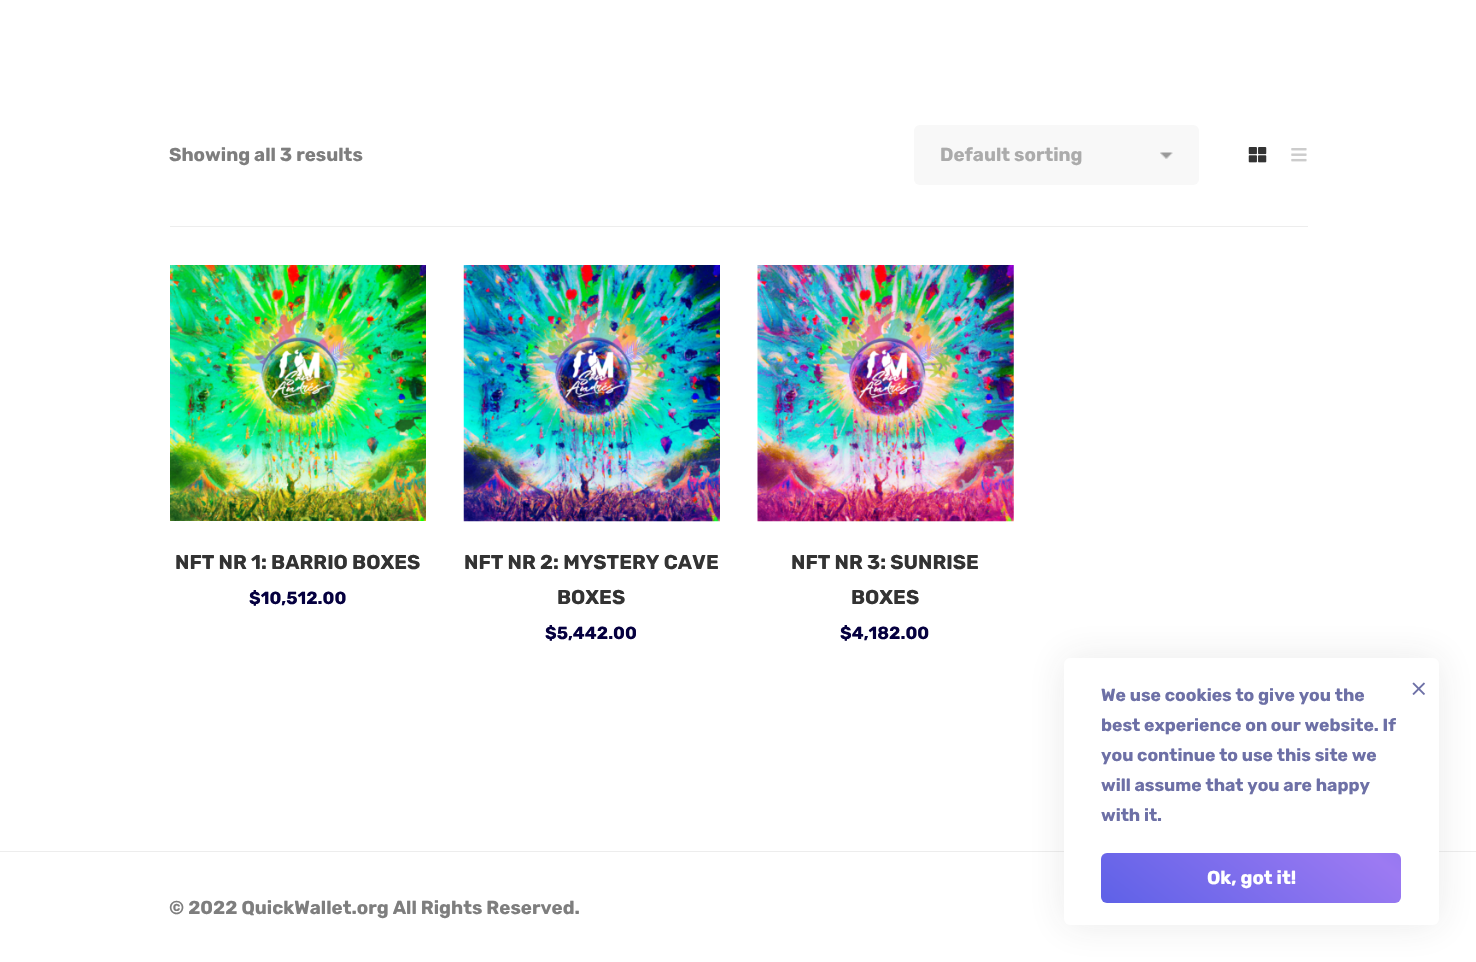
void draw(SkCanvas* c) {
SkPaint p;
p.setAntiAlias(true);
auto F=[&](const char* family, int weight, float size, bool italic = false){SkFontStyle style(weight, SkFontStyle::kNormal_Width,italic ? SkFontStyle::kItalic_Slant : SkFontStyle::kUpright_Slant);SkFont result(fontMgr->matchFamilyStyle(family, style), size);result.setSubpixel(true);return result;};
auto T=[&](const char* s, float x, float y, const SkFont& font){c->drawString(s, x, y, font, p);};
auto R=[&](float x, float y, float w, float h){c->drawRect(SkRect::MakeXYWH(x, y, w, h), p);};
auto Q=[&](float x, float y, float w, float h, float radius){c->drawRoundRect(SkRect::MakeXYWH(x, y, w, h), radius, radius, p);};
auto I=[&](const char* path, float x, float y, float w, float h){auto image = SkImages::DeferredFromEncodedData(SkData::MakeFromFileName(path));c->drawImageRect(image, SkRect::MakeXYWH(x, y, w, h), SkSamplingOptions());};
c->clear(0xffffffff);
p.setColor(0xffededed);
R(170,226,1138,1);
auto f1 = F("Rubik",700,18.75);
p.setColor(0xff7e7e7e);
T("Showing all 3 results",169,161,f1);
p.setColor(0xfff8f8f8);
Q(914,125,285,60,6);
I("1.png",1160,152,13,7);
p.setColor(0xffababab);
T("Default sorting",940,161,f1);
I("2.png",1248,147,19,16);
I("3.png",1291,148,16,14);
I("4.png",170,265,256,256);
auto f2 = F("Rubik",700,20);
p.setColor(0xff333333);
T("NFT NR 1: BARRIO BOXES",175,569,f2);
auto f3 = F("Rubik",700,17.5);
p.setColor(0xff05003f);
T("$10,512.00",249,604,f3);
I("5.png",463,265,257,257);
p.setColor(0xff333333);
T("NFT NR 2: MYSTERY CAVE",464,569,f2);
T("BOXES",557,604,f2);
p.setColor(0xff05003f);
T("$5,442.00",545,639,f3);
I("6.png",757,265,257,257);
p.setColor(0xff333333);
T("NFT NR 3: SUNRISE",791,569,f2);
T("BOXES",851,604,f2);
p.setColor(0xff05003f);
T("$4,182.00",840,639,f3);
p.setColor(0xffededed);
R(0,851,1476,1);
p.setColor(0xff7e7e7e);
T("© 2022 QuickWallet.org All Rights Reserved.",169,914,f1);
p.setColor(0x1a333333);
p.setMaskFilter(SkMaskFilter::MakeBlur(kNormal_SkBlurStyle, 19));
c->drawRoundRect(SkRect::MakeXYWH(1064,658,375,267),6,6,p);
p.setMaskFilter(nullptr);
p.setColor(0xffffffff);
Q(1064,658,375,267,6);
p.setColor(0xff6d70a6);
T("We use cookies to give you the",1101,701,f3);
T("best experience on our website. If",1101,731,f3);
T("you continue to use this site we",1101,761,f3);
T("will assume that you are happy",1101,791,f3);
T("with it.",1101,821,f3);
{
const SkColor colors[] = {0xff5e61e7,0xff9c7af2,0xff5e61e7};
const float stops[] = {0,.5,1};
const SkPoint ends[] = {{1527,716}, {1275,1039}};
p.setShader(SkGradientShader::MakeLinear(ends, colors, stops, 3, SkTileMode::kClamp));
p.setAlpha(255);
}
Q(1101,853,300,50,6);
p.setShader(nullptr);
p.setColor(0xffffffff);
T("Ok, got it!",1207,884,f1);
I("7.png",1412,682,13,13);
}
